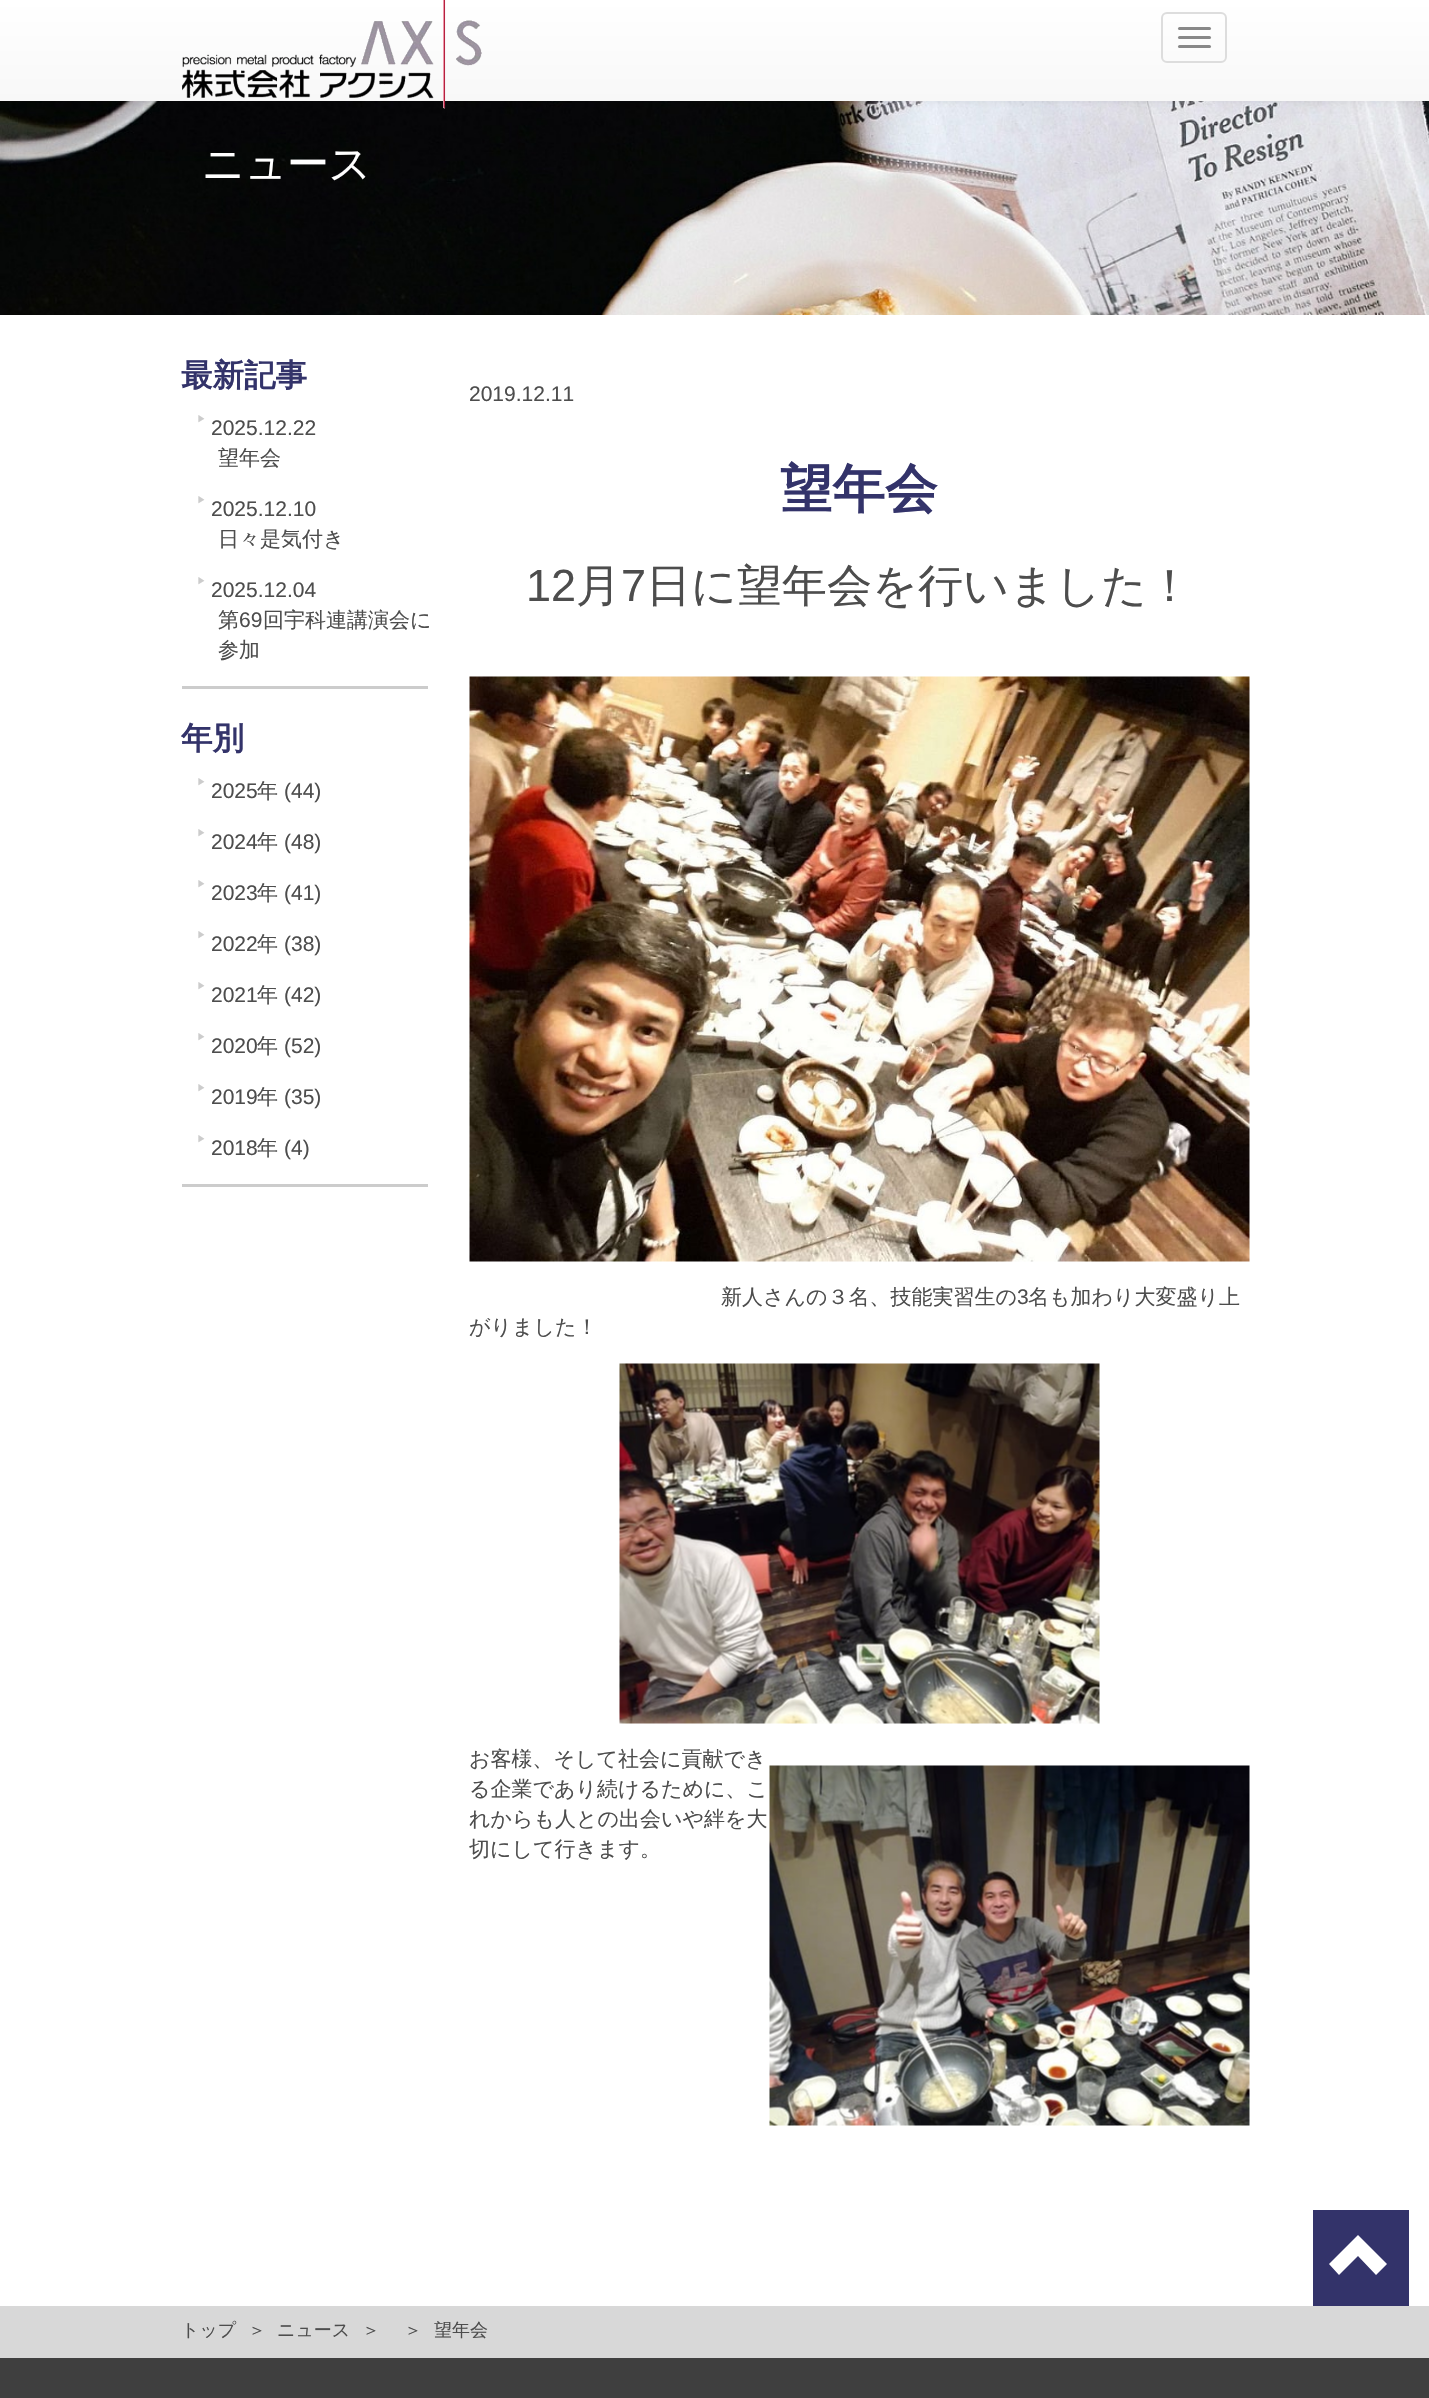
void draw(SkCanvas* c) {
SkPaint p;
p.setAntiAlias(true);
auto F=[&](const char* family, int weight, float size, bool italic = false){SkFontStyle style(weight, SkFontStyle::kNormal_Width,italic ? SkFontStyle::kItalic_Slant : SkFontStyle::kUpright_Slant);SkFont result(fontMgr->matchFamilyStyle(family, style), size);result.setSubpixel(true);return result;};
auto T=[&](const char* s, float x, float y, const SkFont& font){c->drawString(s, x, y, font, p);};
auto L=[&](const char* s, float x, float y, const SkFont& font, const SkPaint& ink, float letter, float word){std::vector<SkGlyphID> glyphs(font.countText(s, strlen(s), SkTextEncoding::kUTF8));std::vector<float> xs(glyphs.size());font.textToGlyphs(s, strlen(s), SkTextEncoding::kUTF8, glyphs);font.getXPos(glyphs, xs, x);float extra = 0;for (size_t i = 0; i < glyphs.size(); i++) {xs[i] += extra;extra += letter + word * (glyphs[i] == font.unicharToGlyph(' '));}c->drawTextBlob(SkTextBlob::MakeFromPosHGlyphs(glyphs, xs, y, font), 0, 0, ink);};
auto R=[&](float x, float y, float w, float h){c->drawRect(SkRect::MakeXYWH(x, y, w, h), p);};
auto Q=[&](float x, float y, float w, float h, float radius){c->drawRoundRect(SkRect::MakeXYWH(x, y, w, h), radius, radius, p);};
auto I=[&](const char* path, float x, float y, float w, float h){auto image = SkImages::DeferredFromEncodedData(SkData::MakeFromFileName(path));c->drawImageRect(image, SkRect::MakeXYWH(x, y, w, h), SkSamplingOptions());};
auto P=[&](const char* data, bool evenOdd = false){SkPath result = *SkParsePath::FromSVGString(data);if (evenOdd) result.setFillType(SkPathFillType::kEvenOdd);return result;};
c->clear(0xffffffff);
I("2.png",0,101,1429,214);
p.setColor(0x12000000);
p.setMaskFilter(SkMaskFilter::MakeBlur(kNormal_SkBlurStyle, 4));
c->drawRect(SkRect::MakeXYWH(0,2,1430,100),p);
p.setMaskFilter(nullptr);
{
const SkColor colors[] = {0xffffffff,0xfff8f8f8};
const float stops[] = {0,1};
const SkPoint ends[] = {{715,0}, {715,101}};
p.setShader(SkGradientShader::MakeLinear(ends, colors, stops, 2, SkTileMode::kClamp));
p.setAlpha(255);
}
R(0,0,1429,101);
I("1.png",182,0,300,109);
p.setStroke(true);
p.setStrokeWidth(2);
p.setShader(nullptr);
p.setColor(0xffdddddd);
c->drawRoundRect(SkRect::MakeXYWH(1162,13,64,49),5,5,p);
p.setStroke(false);
p.setColor(0xff888888);
Q(1178,27,33,3,1.5);
Q(1178,36,33,3,1.5);
Q(1178,45,33,3,1.5);
auto f1 = F("WenQuanYi Zen Hei",500,42);
p.setColor(0xffffffff);
L("ニュース",202,178,f1,p,-.5,0);
auto f2 = F("WenQuanYi Zen Hei",700,31.5);
p.setColor(0xff33336a);
T("最新記事",181,386,f2);
p.setColor(0xffcccccc);
R(182,686,246,3);
auto f3 = F("WenQuanYi Zen Hei",500,9);
T("▶",197,422,f3);
auto f4 = F("Liberation Sans",400,21);
p.setColor(0xff4d4d4d);
T("2025.12.22",211,435,f4);
auto f5 = F("WenQuanYi Zen Hei",500,21);
T("望年会",218,465,f5);
p.setColor(0xffcccccc);
T("▶",197,503,f3);
p.setColor(0xff4d4d4d);
T("2025.12.10",211,516,f4);
T("日々是気付き",218,546,f5);
p.setColor(0xffcccccc);
T("▶",197,584,f3);
p.setColor(0xff4d4d4d);
T("2025.12.04",211,597,f4);
T("第",218,627,f5);
T("69",239,627,f4);
T("回宇科連講演会に",263,627,f5);
T("参加",218,657,f5);
p.setColor(0xff33336a);
T("年別",181,749,f2);
p.setColor(0xffcccccc);
R(182,1184,246,3);
T("▶",197,785,f3);
p.setColor(0xff4d4d4d);
T("2025",211,798,f4);
T("年",257,798,f5);
T("(44)",284,798,f4);
p.setColor(0xffcccccc);
T("▶",197,836,f3);
p.setColor(0xff4d4d4d);
T("2024",211,849,f4);
T("年",257,849,f5);
T("(48)",284,849,f4);
p.setColor(0xffcccccc);
T("▶",197,887,f3);
p.setColor(0xff4d4d4d);
T("2023",211,900,f4);
T("年",257,900,f5);
T("(41)",284,900,f4);
p.setColor(0xffcccccc);
T("▶",197,938,f3);
p.setColor(0xff4d4d4d);
T("2022",211,951,f4);
T("年",257,951,f5);
T("(38)",284,951,f4);
p.setColor(0xffcccccc);
T("▶",197,989,f3);
p.setColor(0xff4d4d4d);
T("2021",211,1002,f4);
T("年",257,1002,f5);
T("(42)",284,1002,f4);
p.setColor(0xffcccccc);
T("▶",197,1040,f3);
p.setColor(0xff4d4d4d);
T("2020",211,1053,f4);
T("年",257,1053,f5);
T("(52)",284,1053,f4);
p.setColor(0xffcccccc);
T("▶",197,1091,f3);
p.setColor(0xff4d4d4d);
T("2019",211,1104,f4);
T("年",257,1104,f5);
T("(35)",284,1104,f4);
p.setColor(0xffcccccc);
T("▶",197,1142,f3);
p.setColor(0xff4d4d4d);
T("2018",211,1155,f4);
T("年",257,1155,f5);
T("(4)",284,1155,f4);
T("2019.12.11",469,401,f4);
auto f6 = F("WenQuanYi Zen Hei",700,52.5);
p.setColor(0xff33336a);
T("望年会",780,507,f6);
auto f7 = F("Liberation Sans",400,45);
p.setColor(0xff4d4d4d);
T("12",526,601,f7);
auto f8 = F("WenQuanYi Zen Hei",500,45);
T("月",576,601,f8);
T("7",621,601,f7);
T("日に望年会を行いました！",646,601,f8);
I("3.png",469,676,781,586);
T("新人さんの３名、技能実習生の",721,1304,f5);
T("3",1017,1304,f4);
T("名も加わり大変盛り上",1028,1304,f5);
T("がりました！",469,1334,f5);
I("4.png",619,1363,481,361);
T("お客様、そして社会に貢献でき",469,1766,f5);
T("る企業であり続けるために、こ",469,1796,f5);
T("れからも人との出会いや絆を大",469,1826,f5);
T("切にして行きます。",469,1856,f5);
I("5.png",769,1765,481,361);
p.setColor(0xff33336a);
R(1313,2210,96,96);
p.setColor(0xffffffff);
c->drawPath(P("M1387 2264l-11 11l-18-19l-19 19l-10-11l29-29z"),p);
p.setColor(0xffd8d8d8);
R(0,2306,1429,52);
auto f9 = F("WenQuanYi Zen Hei",500,18);
p.setColor(0xff4d4d4d);
T("トップ",181,2336,f9);
T("＞",248,2336,f9);
T("ニュース",277,2336,f9);
T("＞",362,2336,f9);
T("＞",404,2336,f9);
T("望年会",434,2336,f9);
p.setColor(0xff3f3f3f);
R(0,2358,1429,40);
}
